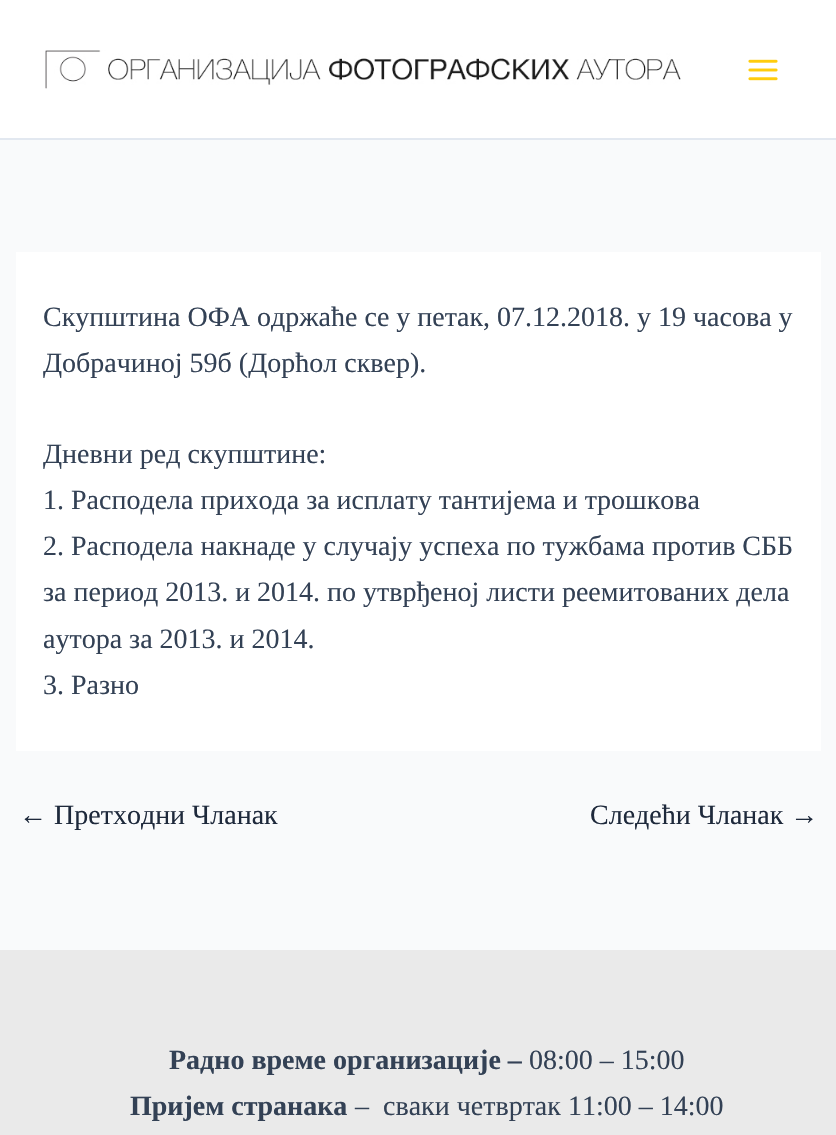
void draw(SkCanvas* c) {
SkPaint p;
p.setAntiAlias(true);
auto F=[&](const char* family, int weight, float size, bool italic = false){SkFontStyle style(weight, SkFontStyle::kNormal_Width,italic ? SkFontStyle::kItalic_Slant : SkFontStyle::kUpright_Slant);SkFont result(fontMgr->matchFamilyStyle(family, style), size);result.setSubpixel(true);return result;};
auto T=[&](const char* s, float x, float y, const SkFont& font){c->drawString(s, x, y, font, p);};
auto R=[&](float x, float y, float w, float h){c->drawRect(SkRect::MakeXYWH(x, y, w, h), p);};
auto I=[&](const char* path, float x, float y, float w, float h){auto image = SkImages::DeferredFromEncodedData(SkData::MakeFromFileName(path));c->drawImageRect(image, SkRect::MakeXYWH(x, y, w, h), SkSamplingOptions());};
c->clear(0xfff9fafb);
p.setColor(0xffffffff);
R(0,0,836,138);
p.setColor(0xffe2e8f0);
R(0,138,836,2);
I("1.png",45,50,636,39);
I("2.png",748,59,30,22);
p.setColor(0xffffffff);
R(16,252,805,499);
auto f1 = F("Liberation Serif",400,28);
p.setColor(0xff334155);
T("Скупштина ОФА одржаће се у петак, 07.12.2018. у 19 часова у",43,326,f1);
T("Добрачиној 59б (Дорћол сквер).",43,372,f1);
T("Дневни ред скупштине:",43,463,f1);
T("1. Расподела прихода за исплату тантијема и трошкова",43,509,f1);
T("2. Расподела накнаде у случају успеха по тужбама против СББ",43,555,f1);
T("за период 2013. и 2014. по утврђеној листи реемитованих дела",43,601,f1);
T("аутора за 2013. и 2014.",43,648,f1);
T("3. Разно",43,694,f1);
p.setColor(0xff1e293b);
T("← Претходни Чланак",19,824,f1);
T("Следећи Чланак →",590,824,f1);
p.setColor(0xffeaeaea);
R(0,950,836,185);
auto f2 = F("Liberation Serif",700,28);
p.setColor(0xff334155);
T("Радно време организације –",169,1069,f2);
T("08:00 – 15:00",529,1069,f1);
T("Пријем странaка",130,1115,f2);
T("–  сваки четвртак 11:00 – 14:00",355,1115,f1);
}
